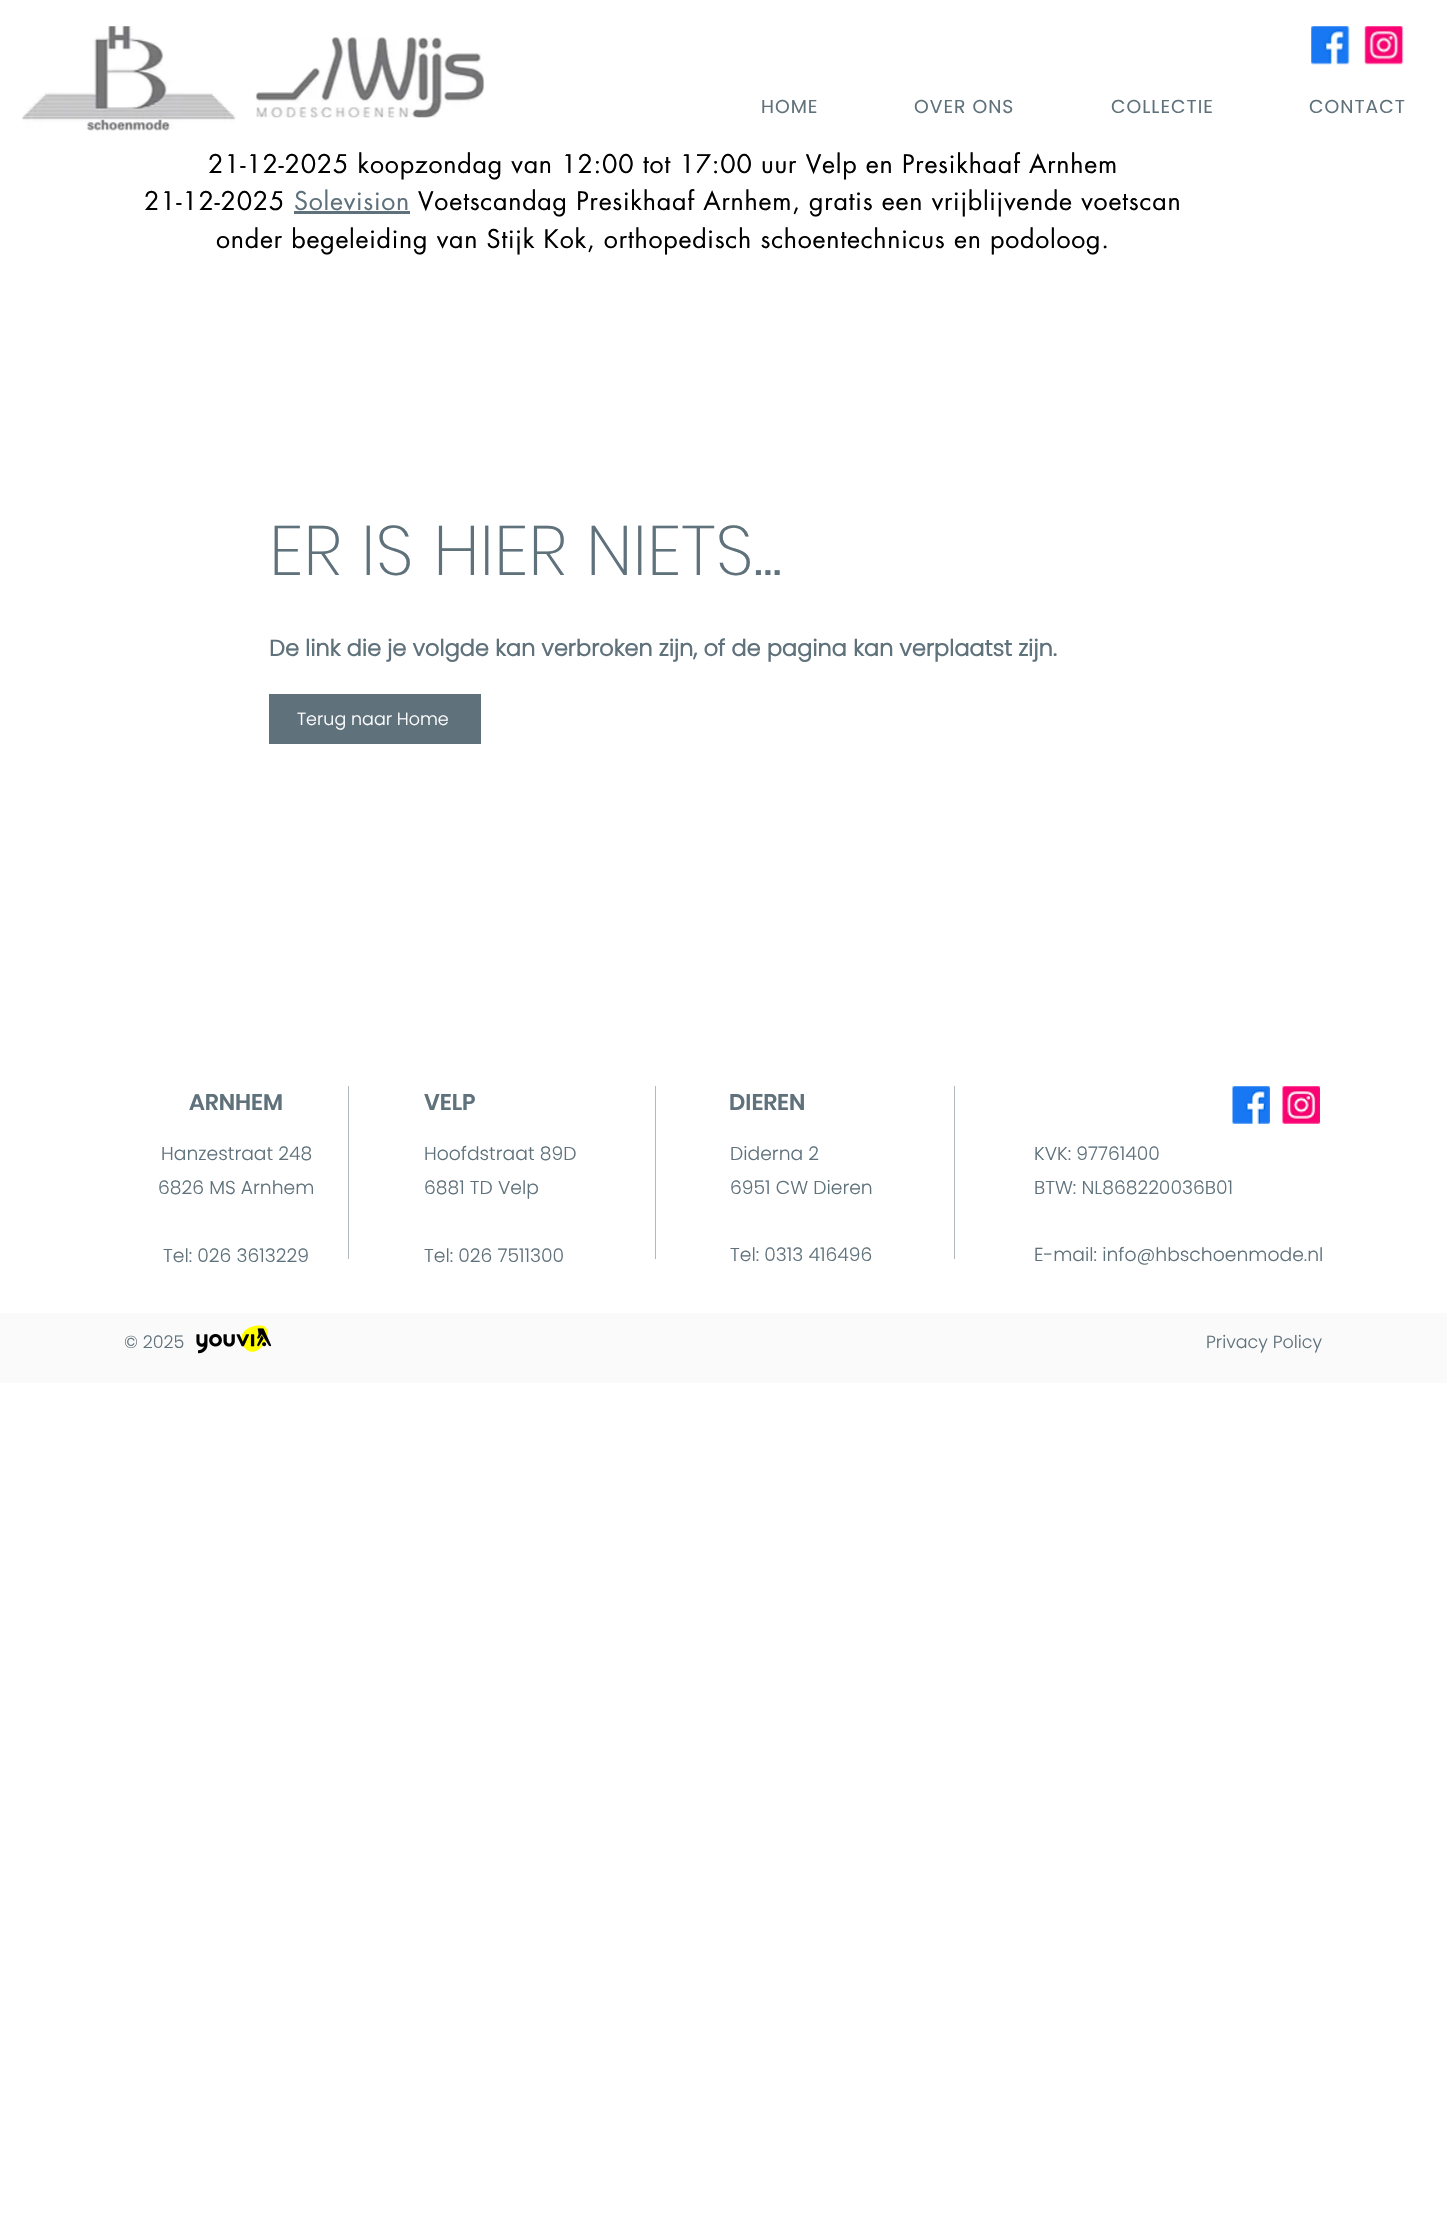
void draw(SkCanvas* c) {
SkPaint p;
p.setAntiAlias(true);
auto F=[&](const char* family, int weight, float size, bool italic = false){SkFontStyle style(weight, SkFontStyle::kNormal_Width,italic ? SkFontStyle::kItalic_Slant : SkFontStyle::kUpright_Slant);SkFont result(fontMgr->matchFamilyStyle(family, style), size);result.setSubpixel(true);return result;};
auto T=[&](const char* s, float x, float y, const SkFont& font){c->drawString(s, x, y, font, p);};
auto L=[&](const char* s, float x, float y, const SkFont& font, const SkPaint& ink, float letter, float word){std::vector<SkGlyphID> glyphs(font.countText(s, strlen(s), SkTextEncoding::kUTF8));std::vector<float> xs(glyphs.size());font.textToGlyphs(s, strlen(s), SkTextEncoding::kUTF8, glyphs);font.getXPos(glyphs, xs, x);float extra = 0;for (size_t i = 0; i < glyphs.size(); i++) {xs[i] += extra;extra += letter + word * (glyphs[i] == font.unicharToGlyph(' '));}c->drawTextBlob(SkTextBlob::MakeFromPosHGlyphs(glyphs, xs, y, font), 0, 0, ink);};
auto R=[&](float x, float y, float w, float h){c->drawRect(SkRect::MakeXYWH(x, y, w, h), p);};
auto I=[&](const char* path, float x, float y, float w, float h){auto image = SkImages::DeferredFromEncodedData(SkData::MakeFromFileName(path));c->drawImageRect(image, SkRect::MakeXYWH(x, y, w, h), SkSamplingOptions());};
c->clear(0xffffffff);
I("1.png",22,26,214,105);
I("2.png",255,37,230,81);
I("3.png",1311,26,39,39);
I("4.png",1364,26,40,39);
auto f1 = F("Poppins",400,18.75);
p.setColor(0xff5f717b);
L("HOME",761,113,f1,p,1,0);
L("OVER ONS",914,113,f1,p,1,0);
L("COLLECTIE",1111,113,f1,p,1,0);
L("CONTACT",1309,113,f1,p,1,0);
auto f2 = F("futura",400,25);
p.setColor(0xff000000);
L("21-12-2025 koopzondag van 12:00 tot 17:00 uur Velp en Presikhaaf Arnhem",208,173,f2,p,.75,0);
L("21-12-2025",144,210,f2,p,.75,0);
p.setColor(0xff5f717b);
L("Solevision",294,210,f2,p,.75,0);
R(294,211,116,3);
p.setColor(0xff000000);
L("Voetscandag Presikhaaf Arnhem, gratis een vrijblijvende voetscan",418,210,f2,p,.75,0);
L("onder begeleiding van Stijk Kok, orthopedisch schoentechnicus en podoloog.",216,248,f2,p,.75,0);
auto f3 = F("Poppins",200,70);
p.setColor(0xff5f717b);
T("ER IS HIER NIETS...",269,575,f3);
auto f4 = F("Poppins",700,22.5);
T("De link die je volgde kan verbroken zijn, of de pagina kan verplaatst zijn.",269,656,f4);
R(269,694,212,50);
auto f5 = F("Poppins",300,17.5);
p.setColor(0xffffffff);
T("Terug naar Home",297,725,f5);
p.setColor(0xffafb8bd);
R(348,1086,1,173);
R(954,1086,1,173);
auto f6 = F("Poppins",600,22.5);
p.setColor(0xff5f717b);
T("ARNHEM",189,1110,f6);
auto f7 = F("Poppins",300,18.75);
T("Hanzestraat 248",161,1160,f7);
T("6826 MS Arnhem",158,1194,f7);
T("Tel: 026 3613229",163,1262,f7);
T("VELP",424,1110,f6);
p.setColor(0xffafb8bd);
R(655,1086,1,173);
p.setColor(0xff5f717b);
T("Hoofdstraat 89D",424,1160,f7);
T("6881 TD Velp",424,1194,f7);
T("Tel: 026 7511300",424,1262,f7);
T("Diderna 2",730,1160,f7);
T("6951 CW Dieren",730,1194,f7);
T("Tel: 0313 416496",730,1261,f7);
I("5.png",1232,1086,38,38);
I("6.png",1282,1086,38,38);
T("KVK: 97761400",1034,1160,f7);
T("BTW: NL868220036B01",1034,1194,f7);
T("E-mail: info@hbschoenmode.nl",1034,1261,f7);
T("DIEREN",729,1110,f6);
p.setColor(0xfffafafa);
R(0,1313,1447,70);
p.setColor(0xff5f717b);
T("© 2025",124,1348,f5);
I("7.png",196,1325,76,29);
T("Privacy Policy",1206,1348,f5);
}
